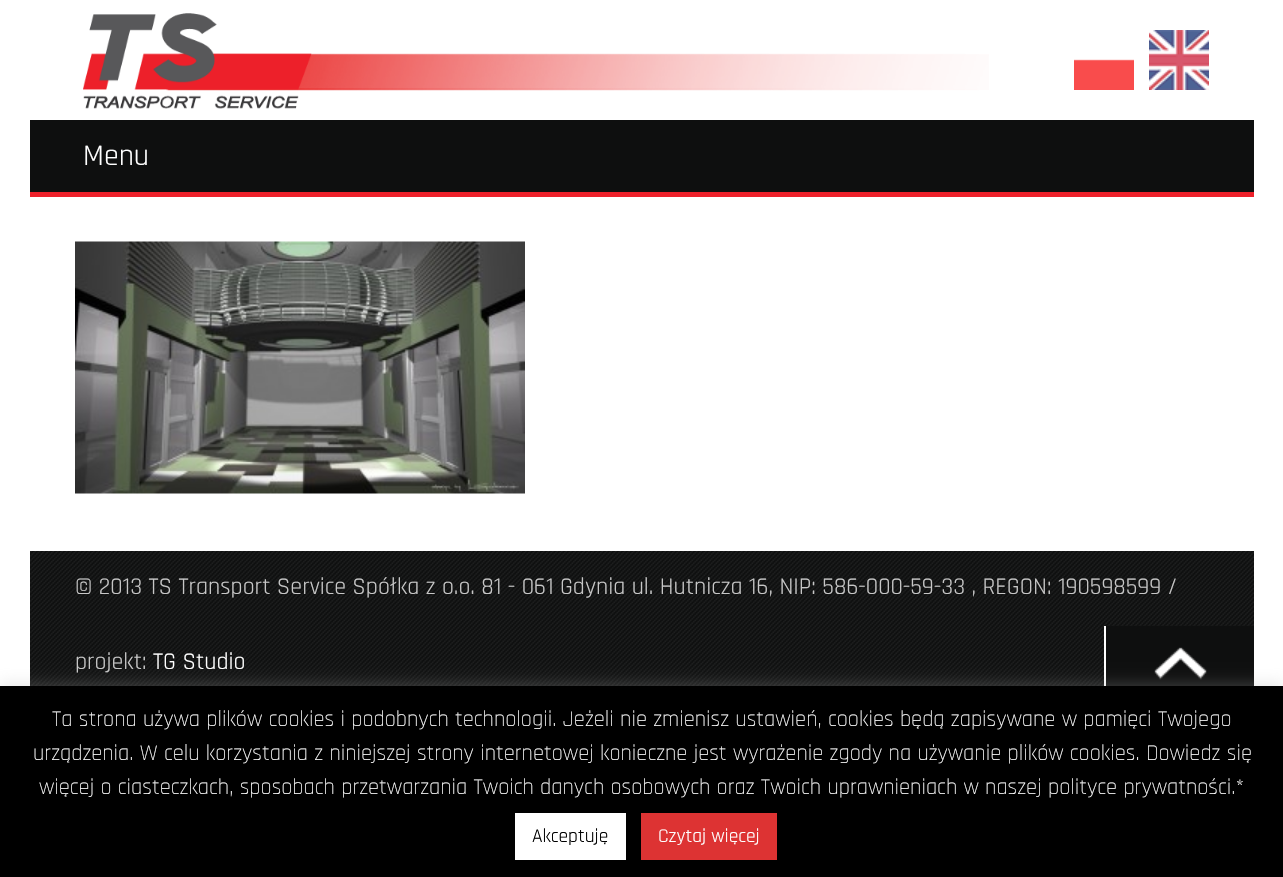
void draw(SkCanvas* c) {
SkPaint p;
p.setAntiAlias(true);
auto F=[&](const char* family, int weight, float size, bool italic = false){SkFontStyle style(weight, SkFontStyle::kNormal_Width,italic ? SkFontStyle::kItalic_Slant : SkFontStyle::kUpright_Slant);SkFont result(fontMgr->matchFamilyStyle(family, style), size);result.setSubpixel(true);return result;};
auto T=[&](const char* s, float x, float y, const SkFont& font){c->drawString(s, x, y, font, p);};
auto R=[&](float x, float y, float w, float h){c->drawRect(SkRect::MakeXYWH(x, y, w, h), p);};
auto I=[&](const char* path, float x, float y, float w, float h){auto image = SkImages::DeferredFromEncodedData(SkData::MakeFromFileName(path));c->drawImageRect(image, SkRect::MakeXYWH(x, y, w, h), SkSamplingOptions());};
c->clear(0xffffffff);
I("1.png",166,53,823,38);
I("2.png",83,13,229,96);
I("3.png",1074,59,60,31);
I("4.png",1149,30,60,60);
p.setColor(0xff0e0f0f);
R(30,120,1224,72);
p.setColor(0xffed202a);
R(30,192,1224,5);
auto f1 = F("Rajdhani",400,30);
p.setColor(0xffffffff);
T("Menu",83,165,f1);
I("5.png",75,241,450,253);
p.setColor(0xff0e0f0f);
R(30,551,1224,135);
I("6.png",30,551,1224,135);
auto f2 = F("Rajdhani",400,24);
p.setColor(0xffc7c7c7);
T("© 2013 TS Transport Service Spółka z o.o. 81 - 061 Gdynia ul. Hutnicza 16, NIP: 586-000-59-33 , REGON: 190598599 /",75,594,f2);
T("projekt:",75,669,f2);
p.setColor(0xffffffff);
T("TG Studio",153,669,f2);
p.setColor(0xff0e0f0f);
R(1106,626,148,60);
I("7.png",1154,647,53,33);
p.setColor(0xffffffff);
R(1104,626,2,60);
p.setColor(0x4dacabab);
p.setMaskFilter(SkMaskFilter::MakeBlur(kNormal_SkBlurStyle, 7.5));
c->drawRect(SkRect::MakeXYWH(0,684,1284,192),p);
p.setMaskFilter(nullptr);
p.setColor(0xff000000);
R(0,686,1283,191);
auto f3 = F("Rajdhani",300,22.5);
p.setColor(0xffffffff);
T("Ta strona używa plików cookies i podobnych technologii. Jeżeli nie zmienisz ustawień, cookies będą zapisywane w pamięci Twojego",52,726,f3);
T("urządzenia. W celu korzystania z niniejszej strony internetowej konieczne jest wyrażenie zgody na używanie plików cookies. Dowiedz się",33,760,f3);
T("więcej o ciasteczkach, sposobach przetwarzania Twoich danych osobowych oraz Twoich uprawnieniach w naszej polityce prywatności.*",39,794,f3);
R(515,813,111,47);
auto f4 = F("Rajdhani",400,19.5);
p.setColor(0xff000000);
T("Akceptuję",532,842,f4);
p.setColor(0xffdd3333);
R(641,813,136,47);
p.setColor(0xffffffff);
T("Czytaj więcej",658,842,f4);
}
